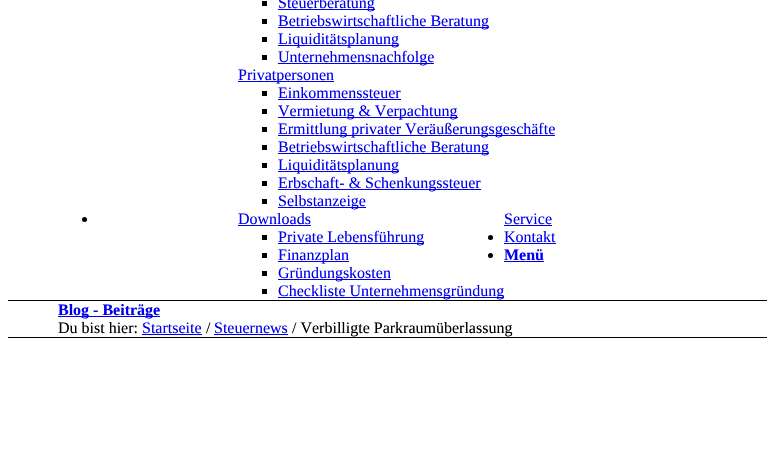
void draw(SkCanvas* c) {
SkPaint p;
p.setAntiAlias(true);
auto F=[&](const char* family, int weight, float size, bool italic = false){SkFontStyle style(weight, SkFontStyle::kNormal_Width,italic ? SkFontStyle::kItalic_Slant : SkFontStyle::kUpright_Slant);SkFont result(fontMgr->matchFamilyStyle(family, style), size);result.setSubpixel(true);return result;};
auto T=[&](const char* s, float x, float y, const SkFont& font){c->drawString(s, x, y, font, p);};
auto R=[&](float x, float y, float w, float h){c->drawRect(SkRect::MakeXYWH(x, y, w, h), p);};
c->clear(0xffffffff);
p.setColor(0xff000000);
R(262,1,5,5);
p.setColor(0xff0000ee);
R(278,9,97,1);
auto f1 = F("Liberation Serif",400,16);
T("Steuerberatung",278,8,f1);
p.setColor(0xff000000);
R(262,19,5,5);
p.setColor(0xff0000ee);
R(278,27,211,1);
T("Betriebswirtschaftliche Beratung",278,26,f1);
p.setColor(0xff000000);
R(262,37,5,5);
p.setColor(0xff0000ee);
R(278,45,121,1);
T("Liquiditätsplanung",278,44,f1);
p.setColor(0xff000000);
R(262,55,5,5);
p.setColor(0xff0000ee);
R(278,63,156,1);
T("Unternehmensnachfolge",278,62,f1);
R(238,81,96,1);
T("Privatpersonen",238,80,f1);
p.setColor(0xff000000);
R(262,91,5,5);
p.setColor(0xff0000ee);
T("Einkommenssteuer",278,98,f1);
R(278,99,123,1);
p.setColor(0xff000000);
R(262,109,5,5);
p.setColor(0xff0000ee);
R(278,117,180,1);
T("Vermietung & Verpachtung",278,116,f1);
p.setColor(0xff000000);
R(262,127,5,5);
p.setColor(0xff0000ee);
R(278,135,277,1);
T("Ermittlung privater Veräußerungsgeschäfte",278,134,f1);
p.setColor(0xff000000);
R(262,145,5,5);
p.setColor(0xff0000ee);
R(278,153,211,1);
T("Betriebswirtschaftliche Beratung",278,152,f1);
p.setColor(0xff000000);
R(262,163,5,5);
p.setColor(0xff0000ee);
R(278,171,121,1);
T("Liquiditätsplanung",278,170,f1);
p.setColor(0xff000000);
R(262,181,5,5);
p.setColor(0xff0000ee);
R(278,189,203,1);
T("Erbschaft- & Schenkungssteuer",278,188,f1);
p.setColor(0xff000000);
R(262,199,5,5);
p.setColor(0xff0000ee);
R(278,207,88,1);
T("Selbstanzeige",278,206,f1);
p.setColor(0xff000000);
c->drawCircle(84.5,219.5,2.5,p);
p.setColor(0xff0000ee);
T("Downloads",238,224,f1);
R(238,225,73,1);
p.setColor(0xff000000);
R(262,235,5,5);
p.setColor(0xff0000ee);
R(278,243,146,1);
T("Private Lebensführung",278,242,f1);
p.setColor(0xff000000);
R(262,253,5,5);
p.setColor(0xff0000ee);
R(278,261,71,1);
T("Finanzplan",278,260,f1);
p.setColor(0xff000000);
R(262,271,5,5);
p.setColor(0xff0000ee);
R(278,279,113,1);
T("Gründungskosten",278,278,f1);
p.setColor(0xff000000);
R(262,289,5,5);
p.setColor(0xff0000ee);
R(278,297,226,1);
T("Checkliste Unternehmensgründung",278,296,f1);
T("Service",504,224,f1);
R(504,225,48,1);
p.setColor(0xff000000);
c->drawCircle(490.5,237.5,2.5,p);
p.setColor(0xff0000ee);
T("Kontakt",504,242,f1);
R(504,243,52,1);
p.setColor(0xff000000);
c->drawCircle(490.5,255.5,2.5,p);
auto f2 = F("Liberation Serif",700,16);
p.setColor(0xff0000ee);
T("Menü",504,260,f2);
R(504,261,40,1);
p.setColor(0xff000000);
R(8,300,759,1);
p.setColor(0xff0000ee);
R(58,316,102,1);
T("Blog - Beiträge",58,315,f2);
p.setColor(0xff000000);
T("Du bist hier:",58,333,f1);
p.setColor(0xff0000ee);
T("Startseite",142,333,f1);
R(142,334,60,1);
p.setColor(0xff000000);
T("/",206,333,f1);
p.setColor(0xff0000ee);
T("Steuernews",214,333,f1);
R(214,334,74,1);
p.setColor(0xff000000);
T("/ Verbilligte Parkraumüberlassung",292,333,f1);
R(8,337,759,1);
}
